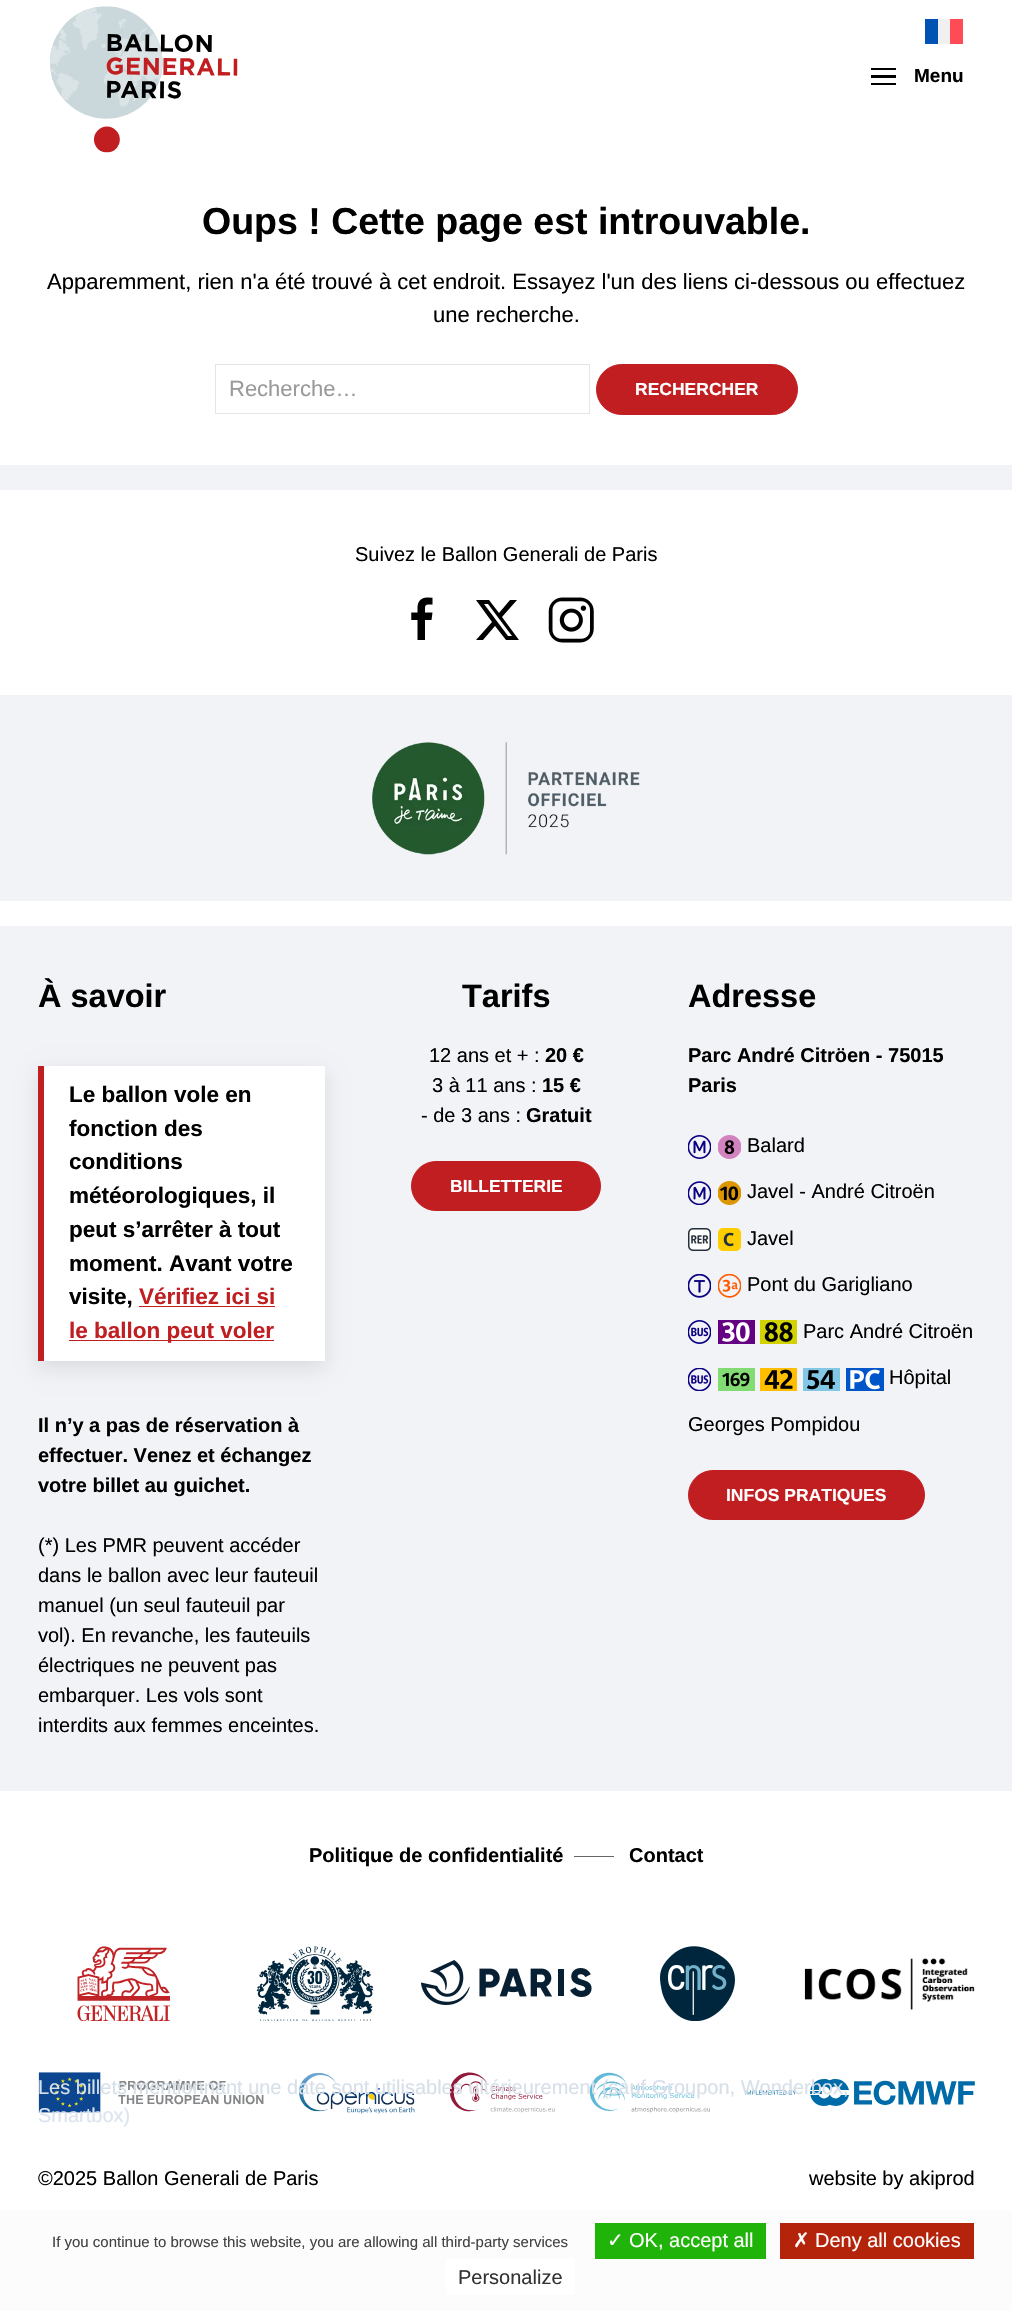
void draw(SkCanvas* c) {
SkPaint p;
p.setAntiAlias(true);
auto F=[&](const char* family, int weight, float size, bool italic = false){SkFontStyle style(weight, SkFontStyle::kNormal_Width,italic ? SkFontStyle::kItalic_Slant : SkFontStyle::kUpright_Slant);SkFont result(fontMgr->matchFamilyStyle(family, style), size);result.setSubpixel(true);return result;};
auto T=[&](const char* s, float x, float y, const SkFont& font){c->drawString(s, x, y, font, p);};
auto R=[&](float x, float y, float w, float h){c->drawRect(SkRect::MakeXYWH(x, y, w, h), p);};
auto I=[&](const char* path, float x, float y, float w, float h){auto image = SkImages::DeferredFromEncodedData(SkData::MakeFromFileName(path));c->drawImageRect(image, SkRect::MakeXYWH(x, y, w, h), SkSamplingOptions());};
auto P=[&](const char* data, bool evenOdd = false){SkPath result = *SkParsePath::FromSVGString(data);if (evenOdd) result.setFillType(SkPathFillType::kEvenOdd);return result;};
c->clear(0xffffffff);
I("1.png",50,6,188,147);
p.setColor(0xff0052b4);
R(925,19,13,25);
p.setColor(0xfff0f0f0);
R(938,19,12,25);
p.setColor(0xffff4b55);
R(950,19,13,25);
p.setColor(0xff000000);
R(871,68,25,2);
R(871,75,25,3);
R(871,83,25,2);
auto f1 = F("Liberation Sans",700,19);
T("Menu",914,82,f1);
auto f2 = F("Liberation Sans",700,37.5);
T("Oups ! Cette page est introuvable.",202,234,f2);
auto f3 = F("Liberation Sans",400,22);
T("Apparemment, rien n'a été trouvé à cet endroit. Essayez l'un des liens ci-dessous ou effectuez",47,289,f3);
T("une recherche.",433,322,f3);
p.setStroke(true);
p.setStrokeWidth(1);
p.setColor(0xffe5e5e5);
c->drawRect(SkRect::MakeXYWH(215.5,364.5,374,49),p);
p.setStroke(false);
p.setColor(0xff999999);
T("Recherche…",229,396,f3);
p.setColor(0xffc11e21);
c->drawRoundRect(SkRect::MakeXYWH(596.5,364.5,201,50),25,25,p);
p.setStroke(true);
c->drawRoundRect(SkRect::MakeXYWH(596.5,364.5,201,50),25,25,p);
auto f4 = F("Liberation Sans",700,17.5);
p.setStroke(false);
p.setColor(0xffffffff);
T("RECHERCHER",635,395,f4);
p.setColor(0xfff2f3f7);
R(0,465,1012,25);
auto f5 = F("Liberation Sans",400,20);
p.setColor(0xff000000);
T("Suivez le Ballon Generali de Paris",355,561,f5);
I("2.png",411,597,22,43);
c->drawPath(P("M510 600h7l-15 17l17 23h-13l-11-14l-12 14h-7l16-18l-16-22h13l10 13zm-2 36h4l-24-32h-4z"),p);
I("3.png",548,597,46,46);
p.setColor(0xfff2f3f7);
R(0,695,1012,206);
I("4.png",372,742,268,113);
R(0,926,1012,865);
auto f6 = F("Liberation Sans",700,32.5);
p.setColor(0xff000000);
T("À savoir",38,1007,f6);
p.setColor(0x1a000000);
p.setMaskFilter(SkMaskFilter::MakeBlur(kNormal_SkBlurStyle, 9.5));
c->drawRect(SkRect::MakeXYWH(38,1073,287,295),p);
p.setMaskFilter(nullptr);
p.setColor(0xffffffff);
R(44,1066,281,295);
p.setColor(0xffc11e21);
R(38,1066,6,295);
auto f7 = F("Liberation Sans",700,22.5);
p.setColor(0xff000000);
T("Le ballon vole en",69,1102,f7);
T("fonction des",69,1136,f7);
T("conditions",69,1169,f7);
T("météorologiques, il",69,1203,f7);
T("peut s’arrêter à tout",69,1237,f7);
T("moment. Avant votre",69,1271,f7);
T("visite,",69,1304,f7);
p.setColor(0xffc11e21);
T("Vérifiez ici si",139,1304,f7);
R(139,1306,136,1);
R(69,1340,205,1);
T("le ballon peut voler",69,1338,f7);
auto f8 = F("Liberation Sans",700,20);
p.setColor(0xff000000);
T("Il n’y a pas de réservation à",38,1432,f8);
T("effectuer. Venez et échangez",38,1462,f8);
T("votre billet au guichet.",38,1492,f8);
T("(*) Les PMR peuvent accéder",38,1552,f5);
T("dans le ballon avec leur fauteuil",38,1582,f5);
T("manuel (un seul fauteuil par",38,1612,f5);
T("vol). En revanche, les fauteuils",38,1642,f5);
T("électriques ne peuvent pas",38,1672,f5);
T("embarquer. Les vols sont",38,1702,f5);
T("interdits aux femmes enceintes.",38,1732,f5);
T("Tarifs",462,1007,f6);
T("12 ans et + :",429,1062,f5);
T("20 €",545,1062,f8);
T("3 à 11 ans :",432,1092,f5);
T("15 €",542,1092,f8);
T("- de 3 ans :",421,1122,f5);
T("Gratuit",526,1122,f8);
p.setColor(0xffc11e21);
c->drawRoundRect(SkRect::MakeXYWH(411.5,1161.5,189,49),24.5,24.5,p);
p.setStroke(true);
c->drawRoundRect(SkRect::MakeXYWH(411.5,1161.5,189,49),24.5,24.5,p);
p.setStroke(false);
p.setColor(0xffffffff);
T("BILLETTERIE",450,1192,f4);
p.setColor(0xff000000);
T("Adresse",688,1007,f6);
T("Parc André Citröen - 75015",688,1062,f8);
T("Paris",688,1092,f8);
I("5.png",688,1135,23,24);
I("6.png",718,1135,23,24);
T("Balard",747,1152,f5);
I("7.png",688,1181,23,24);
I("8.png",718,1181,23,24);
T("Javel - André Citroën",747,1198,f5);
I("9.png",688,1228,23,23);
I("10.png",718,1228,23,23);
T("Javel",747,1245,f5);
I("11.png",688,1274,23,24);
I("12.png",718,1274,23,24);
T("Pont du Garigliano",747,1291,f5);
I("13.png",688,1320,23,24);
I("14.png",718,1320,37,24);
I("15.png",760,1320,37,24);
T("Parc André Citroën",803,1338,f5);
I("16.png",688,1368,23,23);
I("17.png",718,1368,37,23);
I("18.png",760,1368,37,23);
I("19.png",803,1368,37,23);
I("20.png",846,1368,38,23);
T("Hôpital",889,1384,f5);
T("Georges Pompidou",688,1431,f5);
p.setColor(0xffc11e21);
c->drawRoundRect(SkRect::MakeXYWH(688.5,1470.5,236,49),24.5,24.5,p);
p.setStroke(true);
c->drawRoundRect(SkRect::MakeXYWH(688.5,1470.5,236,49),24.5,24.5,p);
p.setStroke(false);
p.setColor(0xffffffff);
T("INFOS PRATIQUES",726,1501,f4);
p.setColor(0xff000000);
T("Politique de confidentialité",309,1862,f8);
p.setColor(0xff666666);
R(574,1856,40,1);
p.setColor(0xff000000);
T("Contact",629,1862,f8);
I("21.png",77,1946,93,75);
I("22.png",256,1946,118,75);
I("23.png",421,1960,171,45);
I("24.png",660,1946,75,75);
I("25.png",804,1958,171,52);
I("26.png",38,2072,937,42);
T("©2025 Ballon Generali de Paris",38,2185,f5);
T("website by akiprod",809,2185,f5);
p.setColor(0xffd7e0e9);
T("Les billets mentionnant une date sont utilisables ultérieurement (sauf Groupon, Wonderbox,",38,2094,f5);
p.setColor(0xffdbe4ef);
T("Smartbox)",38,2122,f5);
p.setColor(0xfffcfcfc);
R(0,2210,1012,101);
auto f9 = F("Liberation Sans",400,15);
p.setColor(0xff424242);
T("If you continue to browse this website, you are allowing all third-party services",52,2247,f9);
p.setColor(0xff20b309);
R(595,2223,171,36);
auto f10 = F("DejaVu Sans",400,20);
p.setColor(0xffffffff);
T("✓",607,2247,f10);
T("OK, accept all",629,2247,f5);
p.setColor(0xffb3240b);
R(780,2223,194,36);
p.setColor(0xffffffff);
T("✗",793,2247,f10);
T("Deny all cookies",815,2247,f5);
R(446,2259,129,36);
p.setColor(0xff333333);
T("Personalize",458,2284,f5);
}
